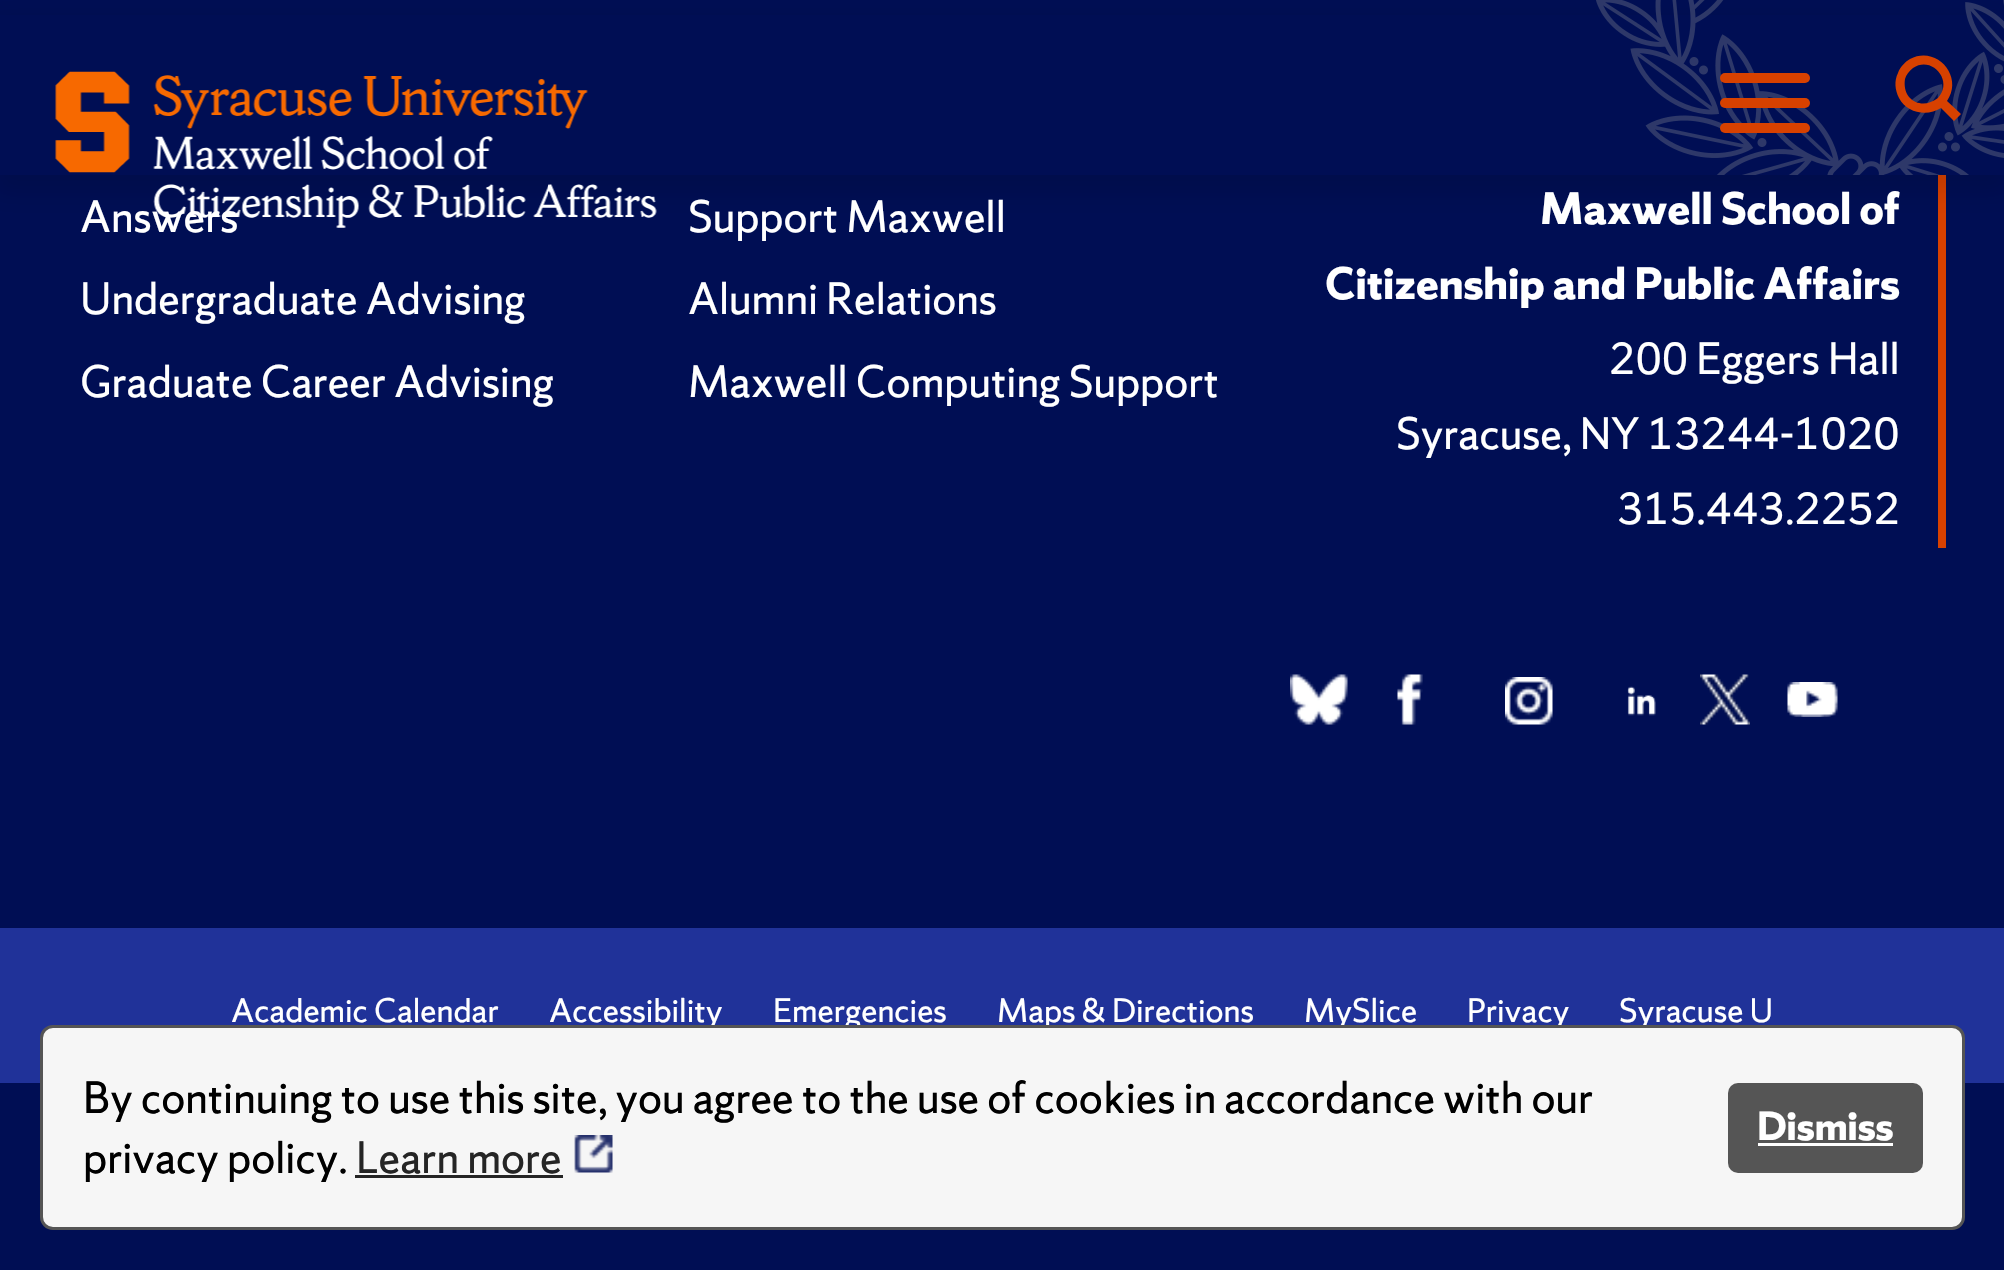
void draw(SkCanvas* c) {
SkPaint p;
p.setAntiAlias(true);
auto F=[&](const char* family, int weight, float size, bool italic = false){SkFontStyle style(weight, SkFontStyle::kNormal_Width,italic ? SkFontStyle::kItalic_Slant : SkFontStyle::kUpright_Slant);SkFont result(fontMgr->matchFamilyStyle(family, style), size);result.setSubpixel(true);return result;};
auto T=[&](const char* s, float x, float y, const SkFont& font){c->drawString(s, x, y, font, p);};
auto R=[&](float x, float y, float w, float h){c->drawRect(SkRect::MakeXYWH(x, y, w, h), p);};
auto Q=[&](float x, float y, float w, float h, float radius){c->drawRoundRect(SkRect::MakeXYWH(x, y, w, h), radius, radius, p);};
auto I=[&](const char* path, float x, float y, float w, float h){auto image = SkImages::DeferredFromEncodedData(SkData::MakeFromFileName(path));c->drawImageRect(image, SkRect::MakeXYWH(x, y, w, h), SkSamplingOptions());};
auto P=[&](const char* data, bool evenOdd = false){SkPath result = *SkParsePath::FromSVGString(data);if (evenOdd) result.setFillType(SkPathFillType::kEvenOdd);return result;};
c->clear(0xff000e54);
p.setColor(0xffd74100);
R(1938,173,8,375);
p.setColor(0x1a000000);
p.setMaskFilter(SkMaskFilter::MakeBlur(kNormal_SkBlurStyle, 11));
c->drawRect(SkRect::MakeXYWH(-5,20,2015,173),p);
p.setMaskFilter(nullptr);
p.setColor(0xff000e54);
R(0,15,2004,160);
I("1.png",1596,0,408,175);
auto f1 = F("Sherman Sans",400,40);
p.setColor(0xffffffff);
T("Answers",80,232,f1);
I("2.png",55,71,602,157);
p.setColor(0xffd74100);
Q(1720,73,90,10,5);
Q(1720,98,90,10,5);
Q(1720,123,90,10,5);
c->drawPath(P("M1947 101c17-24-10-56-37-42c-5 3-10 8-12 14c-4 8-3 17 1 25c8 15 28 19 42 10l13 13l7-7zm-9-3c-9 7-21 8-29-1c-4-5-5-12-4-18c1-4 4-8 8-11c19-13 41 13 25 30z"),p);
p.setColor(0xffffffff);
T("Undergraduate Advising",80,314,f1);
T("Graduate Career Advising",80,397,f1);
T("Support Maxwell",688,232,f1);
T("Alumni Relations",688,314,f1);
T("Maxwell Computing Support",688,397,f1);
auto f2 = F("Sherman Sans",700,40);
T("Maxwell School of",1540,224,f2);
T("Citizenship and Public Affairs",1325,299,f2);
T("200 Eggers Hall",1609,374,f1);
T("Syracuse, NY 13244-1020",1396,449,f1);
T("315.443.2252",1617,524,f1);
I("3.png",1290,674,58,51);
I("4.png",1397,674,26,51);
I("5.png",1505,677,48,48);
I("6.png",1627,686,29,30);
I("7.png",1700,674,50,51);
I("8.png",1787,682,51,35);
p.setColor(0xff203299);
R(0,928,2004,155);
auto f3 = F("Sherman Sans",400,30);
p.setColor(0xffffffff);
T("Academic Calendar",231,1022,f3);
T("Accessibility",549,1022,f3);
T("Emergencies",773,1022,f3);
T("Maps & Directions",997,1022,f3);
T("MySlice",1304,1022,f3);
T("Privacy",1467,1022,f3);
T("Syracuse U",1619,1022,f3);
p.setColor(0xfff6f6f6);
c->drawRoundRect(SkRect::MakeXYWH(41.5,1026.5,1922,202),11.5,11.5,p);
p.setStroke(true);
p.setStrokeWidth(3);
p.setColor(0xff555555);
c->drawRoundRect(SkRect::MakeXYWH(41.5,1026.5,1922,202),11.5,11.5,p);
p.setStroke(false);
p.setColor(0xff000000);
T("By continuing to use this site, you agree to the use of cookies in accordance with our",83,1113,f1);
T("privacy policy.",83,1173,f1);
p.setColor(0xff252525);
T("Learn more",356,1173,f1);
R(355,1175,208,3);
I("9.png",574,1135,39,38);
p.setColor(0xff555555);
Q(1728,1083,195,90,10);
auto f4 = F("Sherman Sans",700,36);
p.setColor(0xffffffff);
T("Dismiss",1757,1140,f4);
R(1758,1143,135,3);
}
